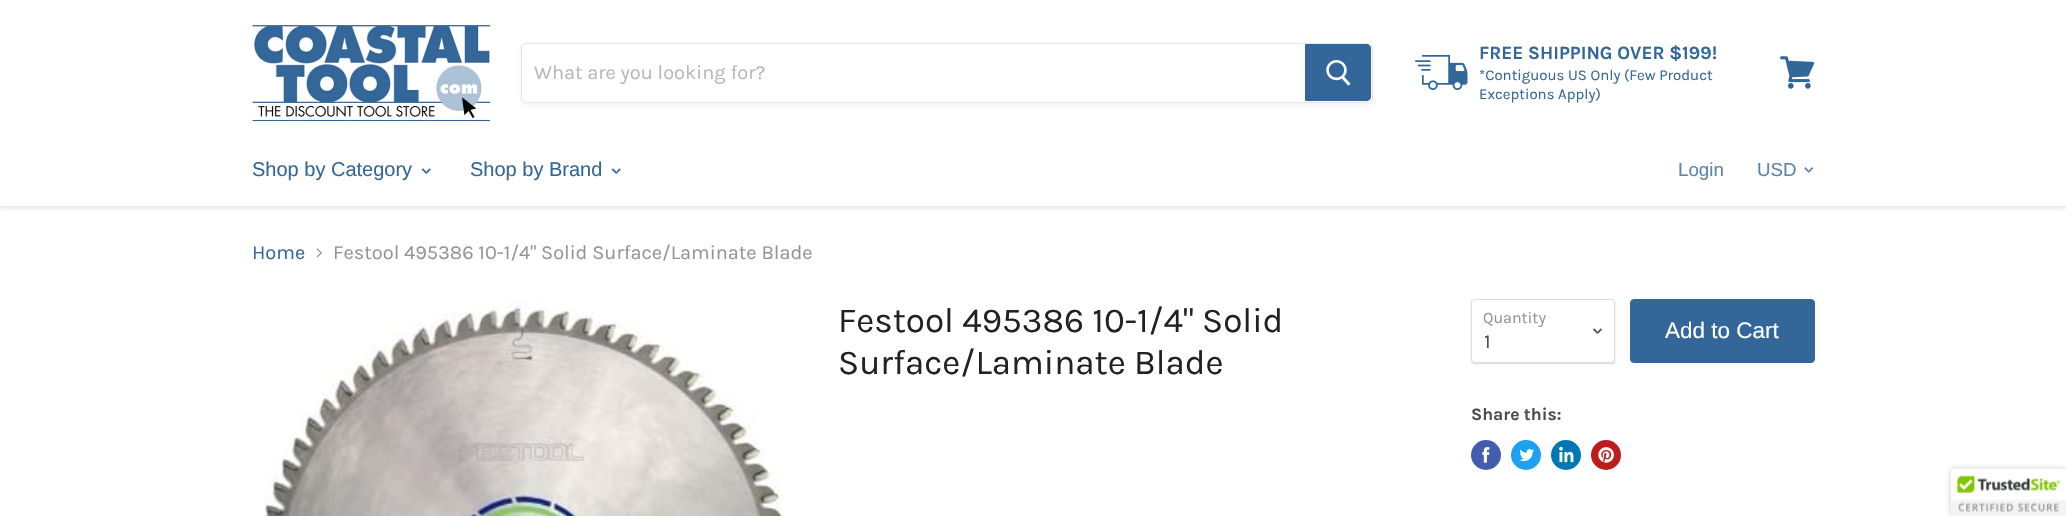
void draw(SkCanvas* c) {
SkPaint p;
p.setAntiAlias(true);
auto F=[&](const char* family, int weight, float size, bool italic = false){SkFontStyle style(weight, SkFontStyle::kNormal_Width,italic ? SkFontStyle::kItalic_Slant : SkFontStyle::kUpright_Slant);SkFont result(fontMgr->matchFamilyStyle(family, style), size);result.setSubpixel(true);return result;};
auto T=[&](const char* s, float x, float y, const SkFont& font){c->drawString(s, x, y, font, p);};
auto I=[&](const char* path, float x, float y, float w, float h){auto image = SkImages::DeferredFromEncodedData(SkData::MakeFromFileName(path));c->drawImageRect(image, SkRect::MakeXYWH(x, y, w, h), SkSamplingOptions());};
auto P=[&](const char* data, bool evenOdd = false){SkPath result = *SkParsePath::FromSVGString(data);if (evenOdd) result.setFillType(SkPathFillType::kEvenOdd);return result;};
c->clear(0xffffffff);
c->save();
c->clipRect(SkRect::MakeXYWH(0,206,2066,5));
p.setColor(0x407f7f7f);
p.setMaskFilter(SkMaskFilter::MakeBlur(kNormal_SkBlurStyle, 2.5));
c->drawRect(SkRect::MakeXYWH(0,1,2066,207),p);
p.setMaskFilter(nullptr);
c->restore();
I("1.png",252,25,239,97);
c->save();
c->clipPath(P("M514 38h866v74h-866zm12 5h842c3 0 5 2 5 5v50c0 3-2 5-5 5h-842c-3 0-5-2-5-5v-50c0-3 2-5 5-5z",true),true);
p.setColor(0x1c7f7f7f);
p.setMaskFilter(SkMaskFilter::MakeBlur(kNormal_SkBlurStyle, 2));
c->drawRoundRect(SkRect::MakeXYWH(521,45,852,60),5,5,p);
p.setMaskFilter(nullptr);
c->restore();
p.setStroke(true);
p.setStrokeWidth(1);
p.setColor(0x337f7f7f);
c->drawRoundRect(SkRect::MakeXYWH(521.5,43.5,851,59),4.5,4.5,p);
auto f1 = F("Karla",400,20);
p.setStroke(false);
p.setColor(0xffb8b8b8);
T("What are you looking for?",534,79,f1);
p.setColor(0xff336699);
c->drawPath(P("M1305.5 44.5h61.5c2 0 3.5 1.5 3.5 3.5v49c0 2-1.5 3.5-3.5 3.5h-61.5z"),p);
p.setStroke(true);
c->drawPath(P("M1305.5 44.5h61.5c2 0 3.5 1.5 3.5 3.5v49c0 2-1.5 3.5-3.5 3.5h-61.5z"),p);
I("2.png",1326,60,25,26);
I("3.png",1415,55,53,35);
auto f2 = F("Karla",700,18.75);
p.setStroke(false);
T("FREE SHIPPING OVER $199!",1479,59,f2);
auto f3 = F("Karla",400,15);
T("*Contiguous US Only (Few Product",1479,80,f3);
T("Exceptions Apply)",1479,99,f3);
I("4.png",1780,56,35,33);
auto f4 = F("Liberation Sans",400,20);
T("Shop by Category",252,176,f4);
I("5.png",421,168,10,7);
T("Shop by Brand",470,176,f4);
I("5.png",611,168,10,7);
auto f5 = F("Liberation Sans",400,18.75);
p.setColor(0xff5c85ad);
T("Login",1678,176,f5);
T("USD",1757,176,f5);
I("6.png",1804,167,10,6);
p.setColor(0xff336699);
T("Home",252,259,f1);
I("7.png",316,248,6,10);
p.setColor(0xff949494);
T("Festool 495386 10-1/4\" Solid Surface/Laminate Blade",333,259,f1);
I("8.png",263,299,524,217);
auto f6 = F("Karla",400,35);
p.setColor(0xff222222);
T("Festool 495386 10-1/4\" Solid",838,332,f6);
T("Surface/Laminate Blade",838,374,f6);
p.setColor(0x26000000);
p.setMaskFilter(SkMaskFilter::MakeBlur(kNormal_SkBlurStyle, 1));
c->drawRoundRect(SkRect::MakeXYWH(1471,300,144,64),4,4,p);
p.setMaskFilter(nullptr);
p.setColor(0xffffffff);
c->drawRoundRect(SkRect::MakeXYWH(1471.5,299.5,143,63),3.5,3.5,p);
p.setStroke(true);
p.setColor(0xffdddddd);
c->drawRoundRect(SkRect::MakeXYWH(1471.5,299.5,143,63),3.5,3.5,p);
auto f7 = F("Karla",400,16);
p.setStroke(false);
p.setColor(0xff949494);
T("Quantity",1483,323,f7);
I("9.png",1593,328,9,7);
p.setColor(0xff4d4d4d);
T("1",1484,348,f1);
p.setColor(0xff336699);
c->drawRoundRect(SkRect::MakeXYWH(1630.5,299.5,184,63),3.5,3.5,p);
p.setStroke(true);
c->drawRoundRect(SkRect::MakeXYWH(1630.5,299.5,184,63),3.5,3.5,p);
auto f8 = F("Liberation Sans",400,22.5);
p.setStroke(false);
p.setColor(0xffffffff);
T("Add to Cart",1665,338,f8);
auto f9 = F("Karla",700,17.5);
p.setColor(0xff4d4d4d);
T("Share this:",1471,420,f9);
p.setColor(0xff425dab);
c->drawCircle(1486,455,15,p);
I("10.png",1482,447,8,16);
p.setColor(0xff1da1f2);
c->drawCircle(1526,455,15,p);
I("11.png",1519,449,15,13);
p.setColor(0xff0077b5);
c->drawCircle(1566,455,15,p);
I("12.png",1559,446,15,17);
p.setColor(0xffbd1c1c);
c->drawCircle(1606,455,15,p);
I("13.png",1598,447,16,16);
p.setColor(0x33000000);
p.setMaskFilter(SkMaskFilter::MakeBlur(kNormal_SkBlurStyle, 3));
c->drawRoundRect(SkRect::MakeXYWH(1951,469,115,47),2.5,2.5,p);
p.setMaskFilter(nullptr);
p.setColor(0xffffffff);
c->drawPath(P("M1953.5 469h112.5v47h-115v-44.5c0-1.5 1-2.5 2.5-2.5z"),p);
I("14.png",1951,468,115,48);
}
